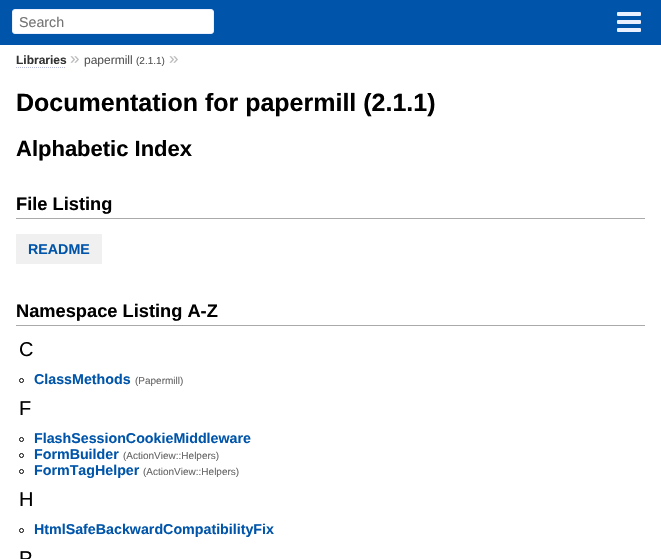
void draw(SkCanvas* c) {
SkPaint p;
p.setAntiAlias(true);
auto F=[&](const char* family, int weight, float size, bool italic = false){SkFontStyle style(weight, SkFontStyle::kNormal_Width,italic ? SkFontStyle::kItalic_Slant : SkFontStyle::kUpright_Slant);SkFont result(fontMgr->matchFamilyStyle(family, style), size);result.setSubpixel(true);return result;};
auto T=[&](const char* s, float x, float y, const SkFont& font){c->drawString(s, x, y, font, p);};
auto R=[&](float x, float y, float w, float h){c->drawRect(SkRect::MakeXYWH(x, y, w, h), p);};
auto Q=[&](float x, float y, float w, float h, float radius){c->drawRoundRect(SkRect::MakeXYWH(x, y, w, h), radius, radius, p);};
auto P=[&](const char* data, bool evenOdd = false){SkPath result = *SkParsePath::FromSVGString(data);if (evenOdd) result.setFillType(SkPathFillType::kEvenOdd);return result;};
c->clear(0xffffffff);
p.setColor(0xff0055aa);
R(0,0,661,45);
p.setColor(0xffffffff);
c->drawRoundRect(SkRect::MakeXYWH(12.5,9.5,201,24),2.5,2.5,p);
p.setStroke(true);
p.setStrokeWidth(1);
p.setColor(0xffeaf0ff);
c->drawRoundRect(SkRect::MakeXYWH(12.5,9.5,201,24),2.5,2.5,p);
auto f1 = F("Liberation Sans",400,14.25);
p.setStroke(false);
p.setColor(0xff757575);
T("Search",19,27,f1);
p.setColor(0xffeaf0ff);
Q(617,12,24,4,1);
Q(617,20,24,4,1);
Q(617,28,24,4,1);
auto f2 = F("Liberation Sans",700,12);
p.setColor(0xff333333);
T("Libraries",16,64,f2);
p.setStroke(true);
p.setColor(0xffbbbbdd);
p.setPathEffect(SkDashPathEffect::Make({{1,1}}, 0));
c->drawPath(P("M16 67.5h50"),p);
p.setPathEffect(nullptr);
auto f3 = F("Liberation Sans",400,17);
p.setStroke(false);
p.setColor(0xffbbbbbb);
T("»",70,64,f3);
auto f4 = F("Liberation Sans",400,12);
p.setColor(0xff555555);
T("papermill",84,64,f4);
auto f5 = F("Liberation Sans",400,10);
T("(2.1.1)",136,64,f5);
p.setColor(0xffbbbbbb);
T("»",169,64,f3);
auto f6 = F("Liberation Sans",700,25);
p.setColor(0xff000000);
T("Documentation for papermill (2.1.1)",16,111,f6);
auto f7 = F("Liberation Sans",700,22);
T("Alphabetic Index",16,156,f7);
p.setColor(0xffaaaaaa);
R(16,218,629,1);
auto f8 = F("Liberation Sans",700,18.25);
p.setColor(0xff000000);
T("File Listing",16,210,f8);
p.setColor(0xfff0f0f0);
R(16,234,86,30);
auto f9 = F("Liberation Sans",700,14.25);
p.setColor(0xff0055aa);
T("README",28,254,f9);
p.setColor(0xffaaaaaa);
R(16,325,629,1);
p.setColor(0xff000000);
T("Namespace Listing A-Z",16,317,f8);
auto f10 = F("Liberation Sans",400,20);
T("C",19,356,f10);
p.setStroke(true);
c->drawCircle(21.5,380.5,2,p);
p.setStroke(false);
p.setColor(0xff0055aa);
T("ClassMethods",34,384,f9);
p.setColor(0xff666666);
T("(Papermill)",135,384,f5);
p.setColor(0xff000000);
T("F",19,415,f10);
p.setStroke(true);
c->drawCircle(21.5,439.5,2,p);
p.setStroke(false);
p.setColor(0xff0055aa);
T("FlashSessionCookieMiddleware",34,443,f9);
p.setStroke(true);
p.setColor(0xff000000);
c->drawCircle(21.5,455.5,2,p);
p.setStroke(false);
p.setColor(0xff0055aa);
T("FormBuilder",34,459,f9);
p.setColor(0xff666666);
T("(ActionView::Helpers)",123,459,f5);
p.setStroke(true);
p.setColor(0xff000000);
c->drawCircle(21.5,471.5,2,p);
p.setStroke(false);
p.setColor(0xff0055aa);
T("FormTagHelper",34,475,f9);
p.setColor(0xff666666);
T("(ActionView::Helpers)",143,475,f5);
p.setColor(0xff000000);
T("H",19,506,f10);
p.setStroke(true);
c->drawCircle(21.5,530.5,2,p);
p.setStroke(false);
p.setColor(0xff0055aa);
T("HtmlSafeBackwardCompatibilityFix",34,534,f9);
p.setColor(0xff000000);
T("P",19,565,f10);
}
